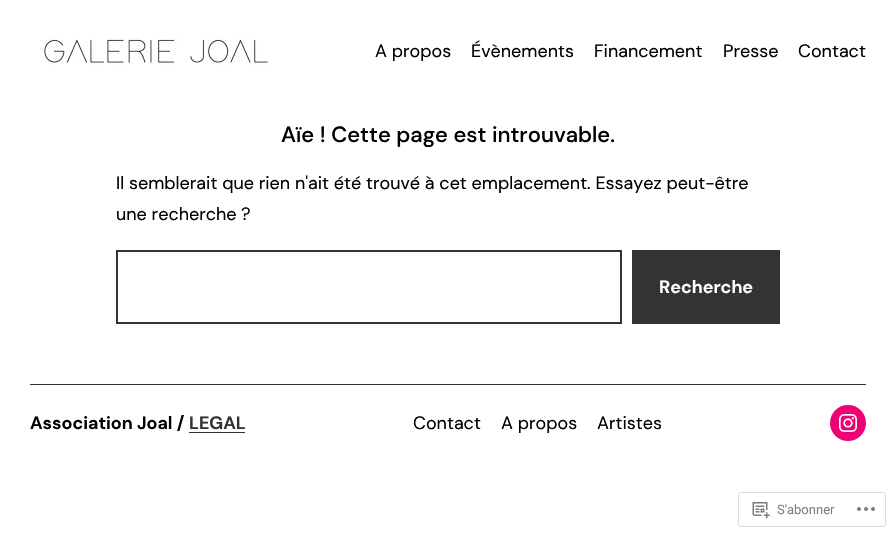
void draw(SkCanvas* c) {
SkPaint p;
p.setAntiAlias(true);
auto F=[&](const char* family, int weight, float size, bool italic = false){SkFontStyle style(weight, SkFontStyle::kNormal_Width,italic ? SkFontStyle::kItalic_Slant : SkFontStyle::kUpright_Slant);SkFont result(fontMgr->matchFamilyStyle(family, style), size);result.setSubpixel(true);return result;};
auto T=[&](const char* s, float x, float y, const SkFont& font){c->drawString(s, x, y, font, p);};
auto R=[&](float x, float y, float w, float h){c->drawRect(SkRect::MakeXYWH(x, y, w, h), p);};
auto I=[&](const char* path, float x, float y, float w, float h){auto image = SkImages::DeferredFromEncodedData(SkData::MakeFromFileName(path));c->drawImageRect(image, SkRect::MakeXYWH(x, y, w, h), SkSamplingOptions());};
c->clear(0xffffffff);
I("1.png",42,38,227,28);
auto f1 = F("DM Sans",400,18);
p.setColor(0xff000000);
T("A propos",375,57,f1);
T("Évènements",471,57,f1);
T("Financement",594,57,f1);
T("Presse",723,57,f1);
T("Contact",798,57,f1);
auto f2 = F("DM Sans",500,22);
T("Aïe ! Cette page est introuvable.",281,142,f2);
T("Il semblerait que rien n'ait été trouvé à cet emplacement. Essayez peut-être",116,189,f1);
T("une recherche ?",116,220,f1);
p.setStroke(true);
p.setStrokeWidth(2);
p.setColor(0xff333333);
c->drawRect(SkRect::MakeXYWH(117,251,504,72),p);
p.setStroke(false);
R(632,250,148,74);
auto f3 = F("DM Sans",700,18);
p.setColor(0xffffffff);
T("Recherche",659,293,f3);
p.setColor(0xff333333);
R(30,384,836,1);
p.setColor(0xff000000);
T("Association Joal /",30,429,f3);
p.setColor(0xff333333);
T("LEGAL",189,429,f3);
R(189,432,56,1);
p.setColor(0xff000000);
T("Contact",413,429,f1);
T("A propos",501,429,f1);
T("Artistes",597,429,f1);
p.setColor(0xfff00075);
c->drawCircle(848,423,18,p);
I("2.png",839,414,18,18);
p.setStroke(true);
p.setStrokeWidth(1);
p.setColor(0xffdddddf);
c->drawRoundRect(SkRect::MakeXYWH(738.5,492.5,147,34),2.5,2.5,p);
I("3.png",752,502,18,17);
auto f4 = F("Roboto",400,13);
p.setStroke(false);
p.setColor(0xff7b7f85);
T("S'abonner",777,514,f4);
I("4.png",857,507,18,4);
}
